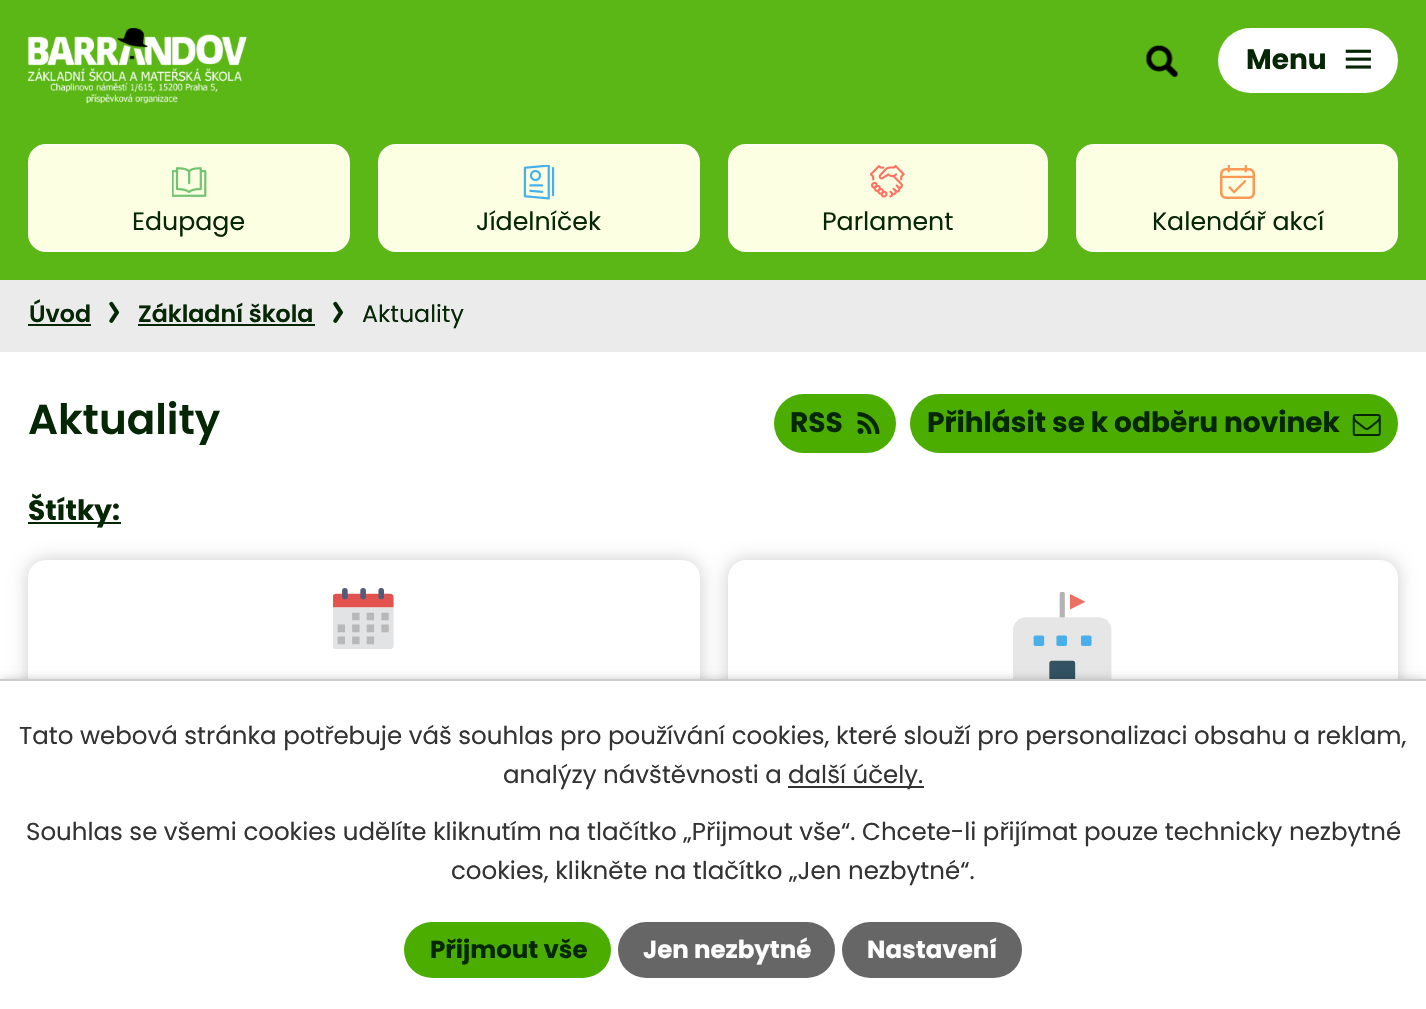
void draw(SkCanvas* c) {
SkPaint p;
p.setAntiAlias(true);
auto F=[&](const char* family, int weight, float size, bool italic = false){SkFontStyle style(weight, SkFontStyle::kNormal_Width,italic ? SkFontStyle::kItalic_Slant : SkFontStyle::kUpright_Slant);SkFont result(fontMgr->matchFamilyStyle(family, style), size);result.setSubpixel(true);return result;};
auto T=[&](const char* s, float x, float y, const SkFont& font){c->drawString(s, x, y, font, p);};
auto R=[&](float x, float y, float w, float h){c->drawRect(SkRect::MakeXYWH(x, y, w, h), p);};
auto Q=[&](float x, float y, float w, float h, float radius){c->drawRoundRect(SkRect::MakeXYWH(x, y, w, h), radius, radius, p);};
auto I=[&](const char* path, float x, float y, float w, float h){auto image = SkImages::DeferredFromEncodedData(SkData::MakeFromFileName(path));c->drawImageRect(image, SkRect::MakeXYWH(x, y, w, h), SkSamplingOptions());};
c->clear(0xffffffff);
p.setColor(0xff5bb715);
R(0,0,1426,280);
p.setColor(0xffffffff);
Q(1218,28,180,65,32.5);
auto f1 = F("Poppins",700,28);
p.setColor(0xff062705);
T("Menu",1246,69,f1);
I("1.png",1345,49,26,20);
I("2.png",28,28,219,76);
I("3.png",1146,45,32,32);
p.setColor(0xfffcffe2);
c->drawRoundRect(SkRect::MakeXYWH(29,145,320,106),17,17,p);
p.setStroke(true);
p.setStrokeWidth(2);
p.setColor(0xfffefff2);
c->drawRoundRect(SkRect::MakeXYWH(29,145,320,106),17,17,p);
I("4.png",172,167,35,30);
auto f2 = F("Poppins",400,25.25);
p.setStroke(false);
p.setColor(0xff062705);
T("Edupage",132,230,f2);
p.setColor(0xfffcffe2);
c->drawRoundRect(SkRect::MakeXYWH(379,145,320,106),17,17,p);
p.setStroke(true);
p.setColor(0xfffefff2);
c->drawRoundRect(SkRect::MakeXYWH(379,145,320,106),17,17,p);
I("5.png",523,165,32,35);
p.setStroke(false);
p.setColor(0xff062705);
T("Jídelníček",476,230,f2);
p.setColor(0xfffcffe2);
c->drawRoundRect(SkRect::MakeXYWH(729,145,318,106),17,17,p);
p.setStroke(true);
p.setColor(0xfffefff2);
c->drawRoundRect(SkRect::MakeXYWH(729,145,318,106),17,17,p);
I("6.png",870,165,35,33);
p.setStroke(false);
p.setColor(0xff062705);
T("Parlament",822,230,f2);
p.setColor(0xfffcffe2);
c->drawRoundRect(SkRect::MakeXYWH(1077,145,320,106),17,17,p);
p.setStroke(true);
p.setColor(0xfffefff2);
c->drawRoundRect(SkRect::MakeXYWH(1077,145,320,106),17,17,p);
I("7.png",1220,165,35,34);
p.setStroke(false);
p.setColor(0xff062705);
T("Kalendář akcí",1152,230,f2);
p.setColor(0xffebebeb);
R(0,280,1426,72);
auto f3 = F("Poppins",600,23.75);
p.setColor(0xff062705);
T("Úvod",29,322,f3);
R(28,324,63,2);
I("8.png",109,301,10,22);
T("Základní škola",138,322,f3);
R(138,324,177,2);
I("8.png",333,301,10,22);
auto f4 = F("Poppins",400,23.75);
T("Aktuality",362,322,f4);
auto f5 = F("Poppins",600,42);
T("Aktuality",28,434,f5);
p.setColor(0xff4bad00);
Q(774,394,122,59,29.5);
p.setColor(0xff062705);
T("RSS",790,432,f1);
I("9.png",857,412,23,22);
p.setColor(0xff4bad00);
Q(910,394,488,59,29.5);
p.setColor(0xff062705);
T("Přihlásit se k odběru novinek",927,432,f1);
I("10.png",1352,414,29,22);
R(28,522,93,2);
T("Štítky:",28,520,f1);
p.setColor(0x33000000);
p.setMaskFilter(SkMaskFilter::MakeBlur(kNormal_SkBlurStyle, 9));
c->drawRoundRect(SkRect::MakeXYWH(28,560,672,229),18,18,p);
p.setMaskFilter(nullptr);
p.setColor(0xffffffff);
Q(28,560,672,229,18);
I("11.png",333,588,61,61);
p.setColor(0x33000000);
p.setMaskFilter(SkMaskFilter::MakeBlur(kNormal_SkBlurStyle, 9));
c->drawRoundRect(SkRect::MakeXYWH(728,560,670,229),18,18,p);
p.setMaskFilter(nullptr);
p.setColor(0xffffffff);
Q(728,560,670,229,18);
I("12.png",1013,592,99,87);
p.setColor(0x33000000);
p.setMaskFilter(SkMaskFilter::MakeBlur(kNormal_SkBlurStyle, 4.5));
c->drawRect(SkRect::MakeXYWH(0,679,1426,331),p);
p.setMaskFilter(nullptr);
p.setColor(0xffffffff);
R(0,681,1426,328);
p.setColor(0xffcccccc);
R(0,679,1426,2);
auto f6 = F("Poppins",400,24.5);
p.setColor(0xff333333);
T("Tato webová stránka potřebuje váš souhlas pro používání cookies, které slouží pro personalizaci obsahu a reklam,",19,744,f6);
T("analýzy návštěvnosti a",503,783,f6);
R(788,786,136,2);
T("další účely.",788,783,f6);
T("Souhlas se všemi cookies udělíte kliknutím na tlačítko „Přijmout vše“. Chcete-li přijímat pouze technicky nezbytné",26,840,f6);
T("cookies, klikněte na tlačítko „Jen nezbytné“.",451,879,f6);
p.setColor(0xff4bad00);
Q(404,922,207,56,28);
auto f7 = F("Poppins",700,24.5);
p.setColor(0xff062705);
T("Přijmout vše",430,958,f7);
p.setColor(0xff666666);
Q(618,922,217,56,28);
p.setColor(0xffffffff);
T("Jen nezbytné",643,958,f7);
p.setColor(0xff666666);
Q(842,922,180,56,28);
p.setColor(0xffffffff);
T("Nastavení",867,958,f7);
}
